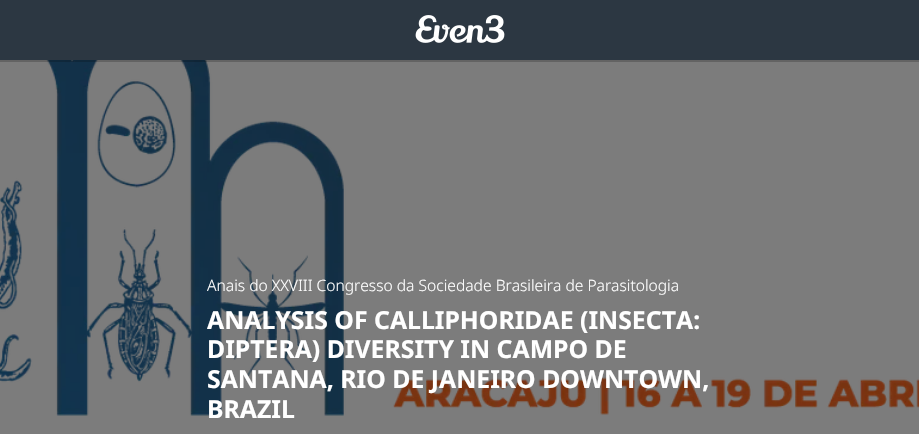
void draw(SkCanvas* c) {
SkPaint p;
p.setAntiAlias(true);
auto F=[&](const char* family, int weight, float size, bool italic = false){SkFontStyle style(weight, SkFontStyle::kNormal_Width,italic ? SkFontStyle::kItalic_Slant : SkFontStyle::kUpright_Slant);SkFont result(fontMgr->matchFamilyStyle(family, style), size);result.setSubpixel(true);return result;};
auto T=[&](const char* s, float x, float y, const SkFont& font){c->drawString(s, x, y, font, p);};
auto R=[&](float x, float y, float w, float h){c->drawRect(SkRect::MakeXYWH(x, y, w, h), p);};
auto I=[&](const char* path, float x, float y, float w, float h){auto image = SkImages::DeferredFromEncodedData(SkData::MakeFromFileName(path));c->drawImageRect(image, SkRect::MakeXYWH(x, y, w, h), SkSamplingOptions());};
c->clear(0xff7c7c7c);
I("2.png",0,60,919,356);
p.setColor(0x33000000);
R(0,60,919,2);
p.setColor(0xff2c3742);
R(0,0,919,60);
I("1.png",415,15,90,28);
auto f1 = F("Noto Sans",300,15.6);
p.setColor(0xffffffff);
T("Anais do XXVIII Congresso da Sociedade Brasileira de Parasitologia",207,291,f1);
auto f2 = F("Noto Sans",700,24.8);
T("ANALYSIS OF CALLIPHORIDAE (INSECTA:",207,329,f2);
T("DIPTERA) DIVERSITY IN CAMPO DE",207,358,f2);
T("SANTANA, RIO DE JANEIRO DOWNTOWN,",207,388,f2);
T("BRAZIL",207,418,f2);
}
